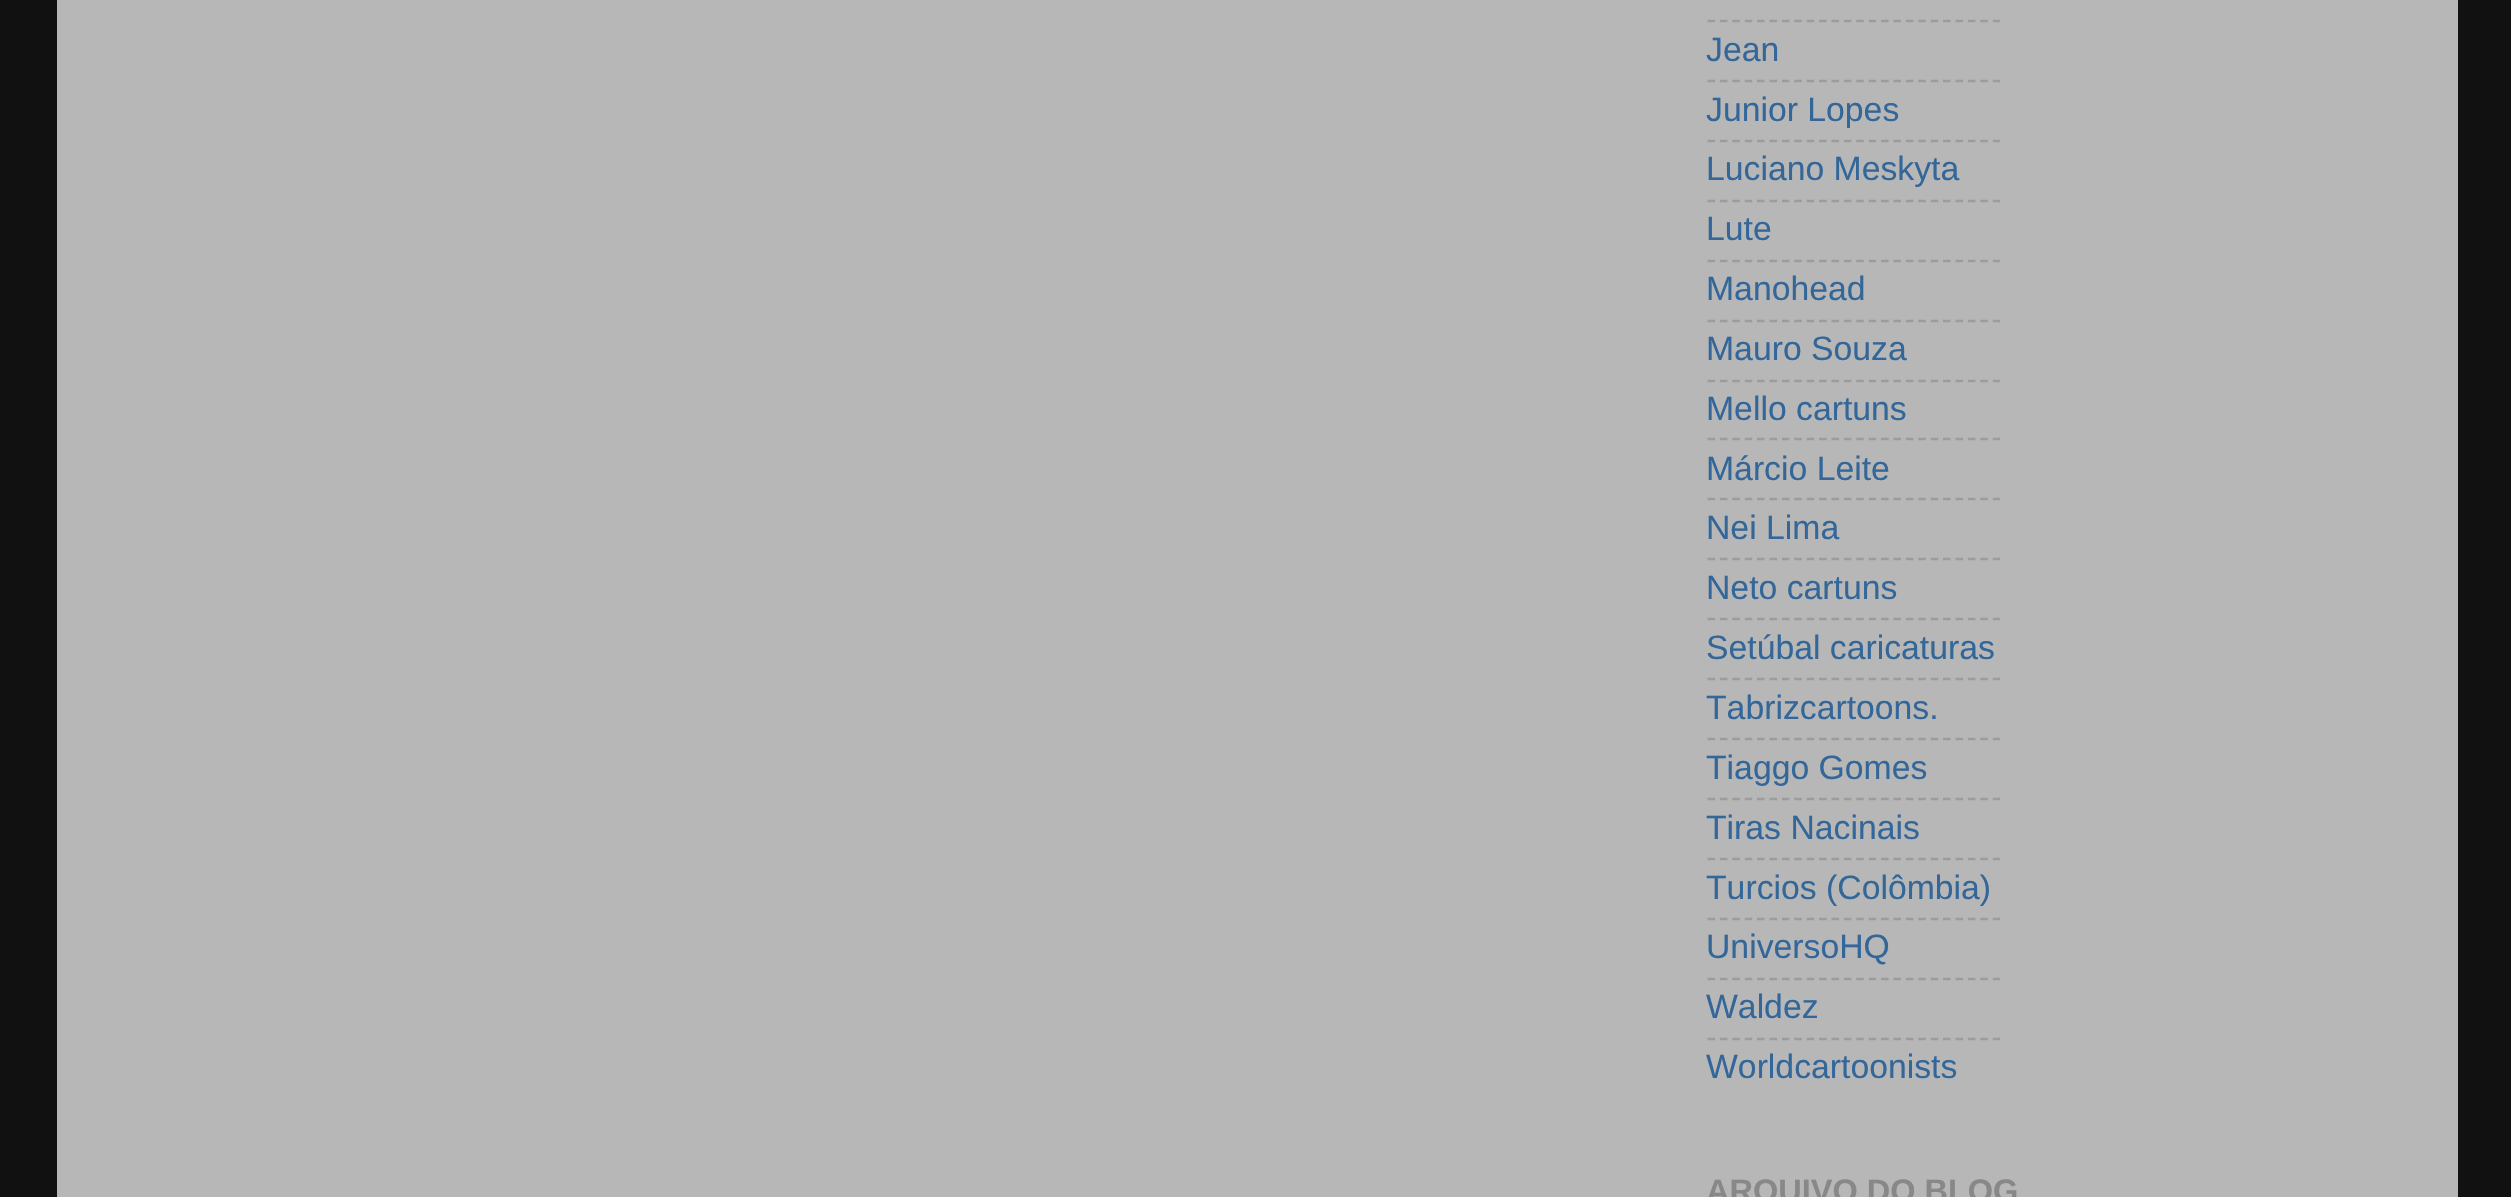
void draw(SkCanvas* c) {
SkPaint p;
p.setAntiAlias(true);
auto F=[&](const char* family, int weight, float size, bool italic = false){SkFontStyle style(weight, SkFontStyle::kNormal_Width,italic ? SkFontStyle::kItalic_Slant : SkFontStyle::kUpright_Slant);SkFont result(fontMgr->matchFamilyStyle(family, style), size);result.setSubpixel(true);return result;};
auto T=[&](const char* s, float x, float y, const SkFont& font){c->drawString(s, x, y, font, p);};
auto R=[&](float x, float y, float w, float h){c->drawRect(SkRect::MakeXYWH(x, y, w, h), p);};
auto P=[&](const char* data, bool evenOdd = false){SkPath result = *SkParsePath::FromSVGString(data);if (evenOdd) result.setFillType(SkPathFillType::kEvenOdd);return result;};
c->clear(0xff111111);
p.setColor(0xffb7b7b7);
R(57,0,2401,1197);
p.setStroke(true);
p.setStrokeWidth(2.5);
p.setColor(0xff9c9c9c);
p.setPathEffect(SkDashPathEffect::Make({{7.5f,4.9f}}, 0));
c->drawPath(P("M1707.5 21h292.5"),p);
p.setPathEffect(nullptr);
auto f1 = F("Liberation Sans",400,33.75);
p.setStroke(false);
p.setColor(0xff336699);
T("Jean",1706,61,f1);
p.setStroke(true);
p.setColor(0xff9c9c9c);
p.setPathEffect(SkDashPathEffect::Make({{7.5f,4.9f}}, 0));
c->drawPath(P("M1707.5 81h292.5"),p);
p.setPathEffect(nullptr);
p.setStroke(false);
p.setColor(0xff336699);
T("Junior Lopes",1706,121,f1);
p.setStroke(true);
p.setColor(0xff9c9c9c);
p.setPathEffect(SkDashPathEffect::Make({{7.5f,4.9f}}, 0));
c->drawPath(P("M1707.5 141h292.5"),p);
p.setPathEffect(nullptr);
p.setStroke(false);
p.setColor(0xff336699);
T("Luciano Meskyta",1706,180,f1);
p.setStroke(true);
p.setColor(0xff9c9c9c);
p.setPathEffect(SkDashPathEffect::Make({{7.5f,4.9f}}, 0));
c->drawPath(P("M1707.5 201h292.5"),p);
p.setPathEffect(nullptr);
p.setStroke(false);
p.setColor(0xff336699);
T("Lute",1706,240,f1);
p.setStroke(true);
p.setColor(0xff9c9c9c);
p.setPathEffect(SkDashPathEffect::Make({{7.5f,4.9f}}, 0));
c->drawPath(P("M1707.5 261h292.5"),p);
p.setPathEffect(nullptr);
p.setStroke(false);
p.setColor(0xff336699);
T("Manohead",1706,300,f1);
p.setStroke(true);
p.setColor(0xff9c9c9c);
p.setPathEffect(SkDashPathEffect::Make({{7.5f,4.9f}}, 0));
c->drawPath(P("M1707.5 321h292.5"),p);
p.setPathEffect(nullptr);
p.setStroke(false);
p.setColor(0xff336699);
T("Mauro Souza",1706,360,f1);
p.setStroke(true);
p.setColor(0xff9c9c9c);
p.setPathEffect(SkDashPathEffect::Make({{7.5f,4.9f}}, 0));
c->drawPath(P("M1707.5 381h292.5"),p);
p.setPathEffect(nullptr);
p.setStroke(false);
p.setColor(0xff336699);
T("Mello cartuns",1706,420,f1);
p.setStroke(true);
p.setColor(0xff9c9c9c);
p.setPathEffect(SkDashPathEffect::Make({{7.5f,4.9f}}, 0));
c->drawPath(P("M1707.5 439h292.5"),p);
p.setPathEffect(nullptr);
p.setStroke(false);
p.setColor(0xff336699);
T("Márcio Leite",1706,480,f1);
p.setStroke(true);
p.setColor(0xff9c9c9c);
p.setPathEffect(SkDashPathEffect::Make({{7.5f,4.9f}}, 0));
c->drawPath(P("M1707.5 499h292.5"),p);
p.setPathEffect(nullptr);
p.setStroke(false);
p.setColor(0xff336699);
T("Nei Lima",1706,539,f1);
p.setStroke(true);
p.setColor(0xff9c9c9c);
p.setPathEffect(SkDashPathEffect::Make({{7.5f,4.9f}}, 0));
c->drawPath(P("M1707.5 559h292.5"),p);
p.setPathEffect(nullptr);
p.setStroke(false);
p.setColor(0xff336699);
T("Neto cartuns",1706,599,f1);
p.setStroke(true);
p.setColor(0xff9c9c9c);
p.setPathEffect(SkDashPathEffect::Make({{7.5f,4.9f}}, 0));
c->drawPath(P("M1707.5 619h292.5"),p);
p.setPathEffect(nullptr);
p.setStroke(false);
p.setColor(0xff336699);
T("Setúbal caricaturas",1706,659,f1);
p.setStroke(true);
p.setColor(0xff9c9c9c);
p.setPathEffect(SkDashPathEffect::Make({{7.5f,4.9f}}, 0));
c->drawPath(P("M1707.5 679h292.5"),p);
p.setPathEffect(nullptr);
p.setStroke(false);
p.setColor(0xff336699);
T("Tabrizcartoons.",1706,719,f1);
p.setStroke(true);
p.setColor(0xff9c9c9c);
p.setPathEffect(SkDashPathEffect::Make({{7.5f,4.9f}}, 0));
c->drawPath(P("M1707.5 739h292.5"),p);
p.setPathEffect(nullptr);
p.setStroke(false);
p.setColor(0xff336699);
T("Tiaggo Gomes",1706,779,f1);
p.setStroke(true);
p.setColor(0xff9c9c9c);
p.setPathEffect(SkDashPathEffect::Make({{7.5f,4.9f}}, 0));
c->drawPath(P("M1707.5 799h292.5"),p);
p.setPathEffect(nullptr);
p.setStroke(false);
p.setColor(0xff336699);
T("Tiras Nacinais",1706,839,f1);
p.setStroke(true);
p.setColor(0xff9c9c9c);
p.setPathEffect(SkDashPathEffect::Make({{7.5f,4.9f}}, 0));
c->drawPath(P("M1707.5 859h292.5"),p);
p.setPathEffect(nullptr);
p.setStroke(false);
p.setColor(0xff336699);
T("Turcios (Colômbia)",1706,899,f1);
p.setStroke(true);
p.setColor(0xff9c9c9c);
p.setPathEffect(SkDashPathEffect::Make({{7.5f,4.9f}}, 0));
c->drawPath(P("M1707.5 919h292.5"),p);
p.setPathEffect(nullptr);
p.setStroke(false);
p.setColor(0xff336699);
T("UniversoHQ",1706,958,f1);
p.setStroke(true);
p.setColor(0xff9c9c9c);
p.setPathEffect(SkDashPathEffect::Make({{7.5f,4.9f}}, 0));
c->drawPath(P("M1707.5 979h292.5"),p);
p.setPathEffect(nullptr);
p.setStroke(false);
p.setColor(0xff336699);
T("Waldez",1706,1018,f1);
p.setStroke(true);
p.setColor(0xff9c9c9c);
p.setPathEffect(SkDashPathEffect::Make({{7.5f,4.9f}}, 0));
c->drawPath(P("M1707.5 1039h292.5"),p);
p.setPathEffect(nullptr);
p.setStroke(false);
p.setColor(0xff336699);
T("Worldcartoonists",1706,1078,f1);
auto f2 = F("Liberation Sans",700,32.5);
p.setColor(0xff888888);
T("ARQUIVO DO BLOG",1706,1202,f2);
}
